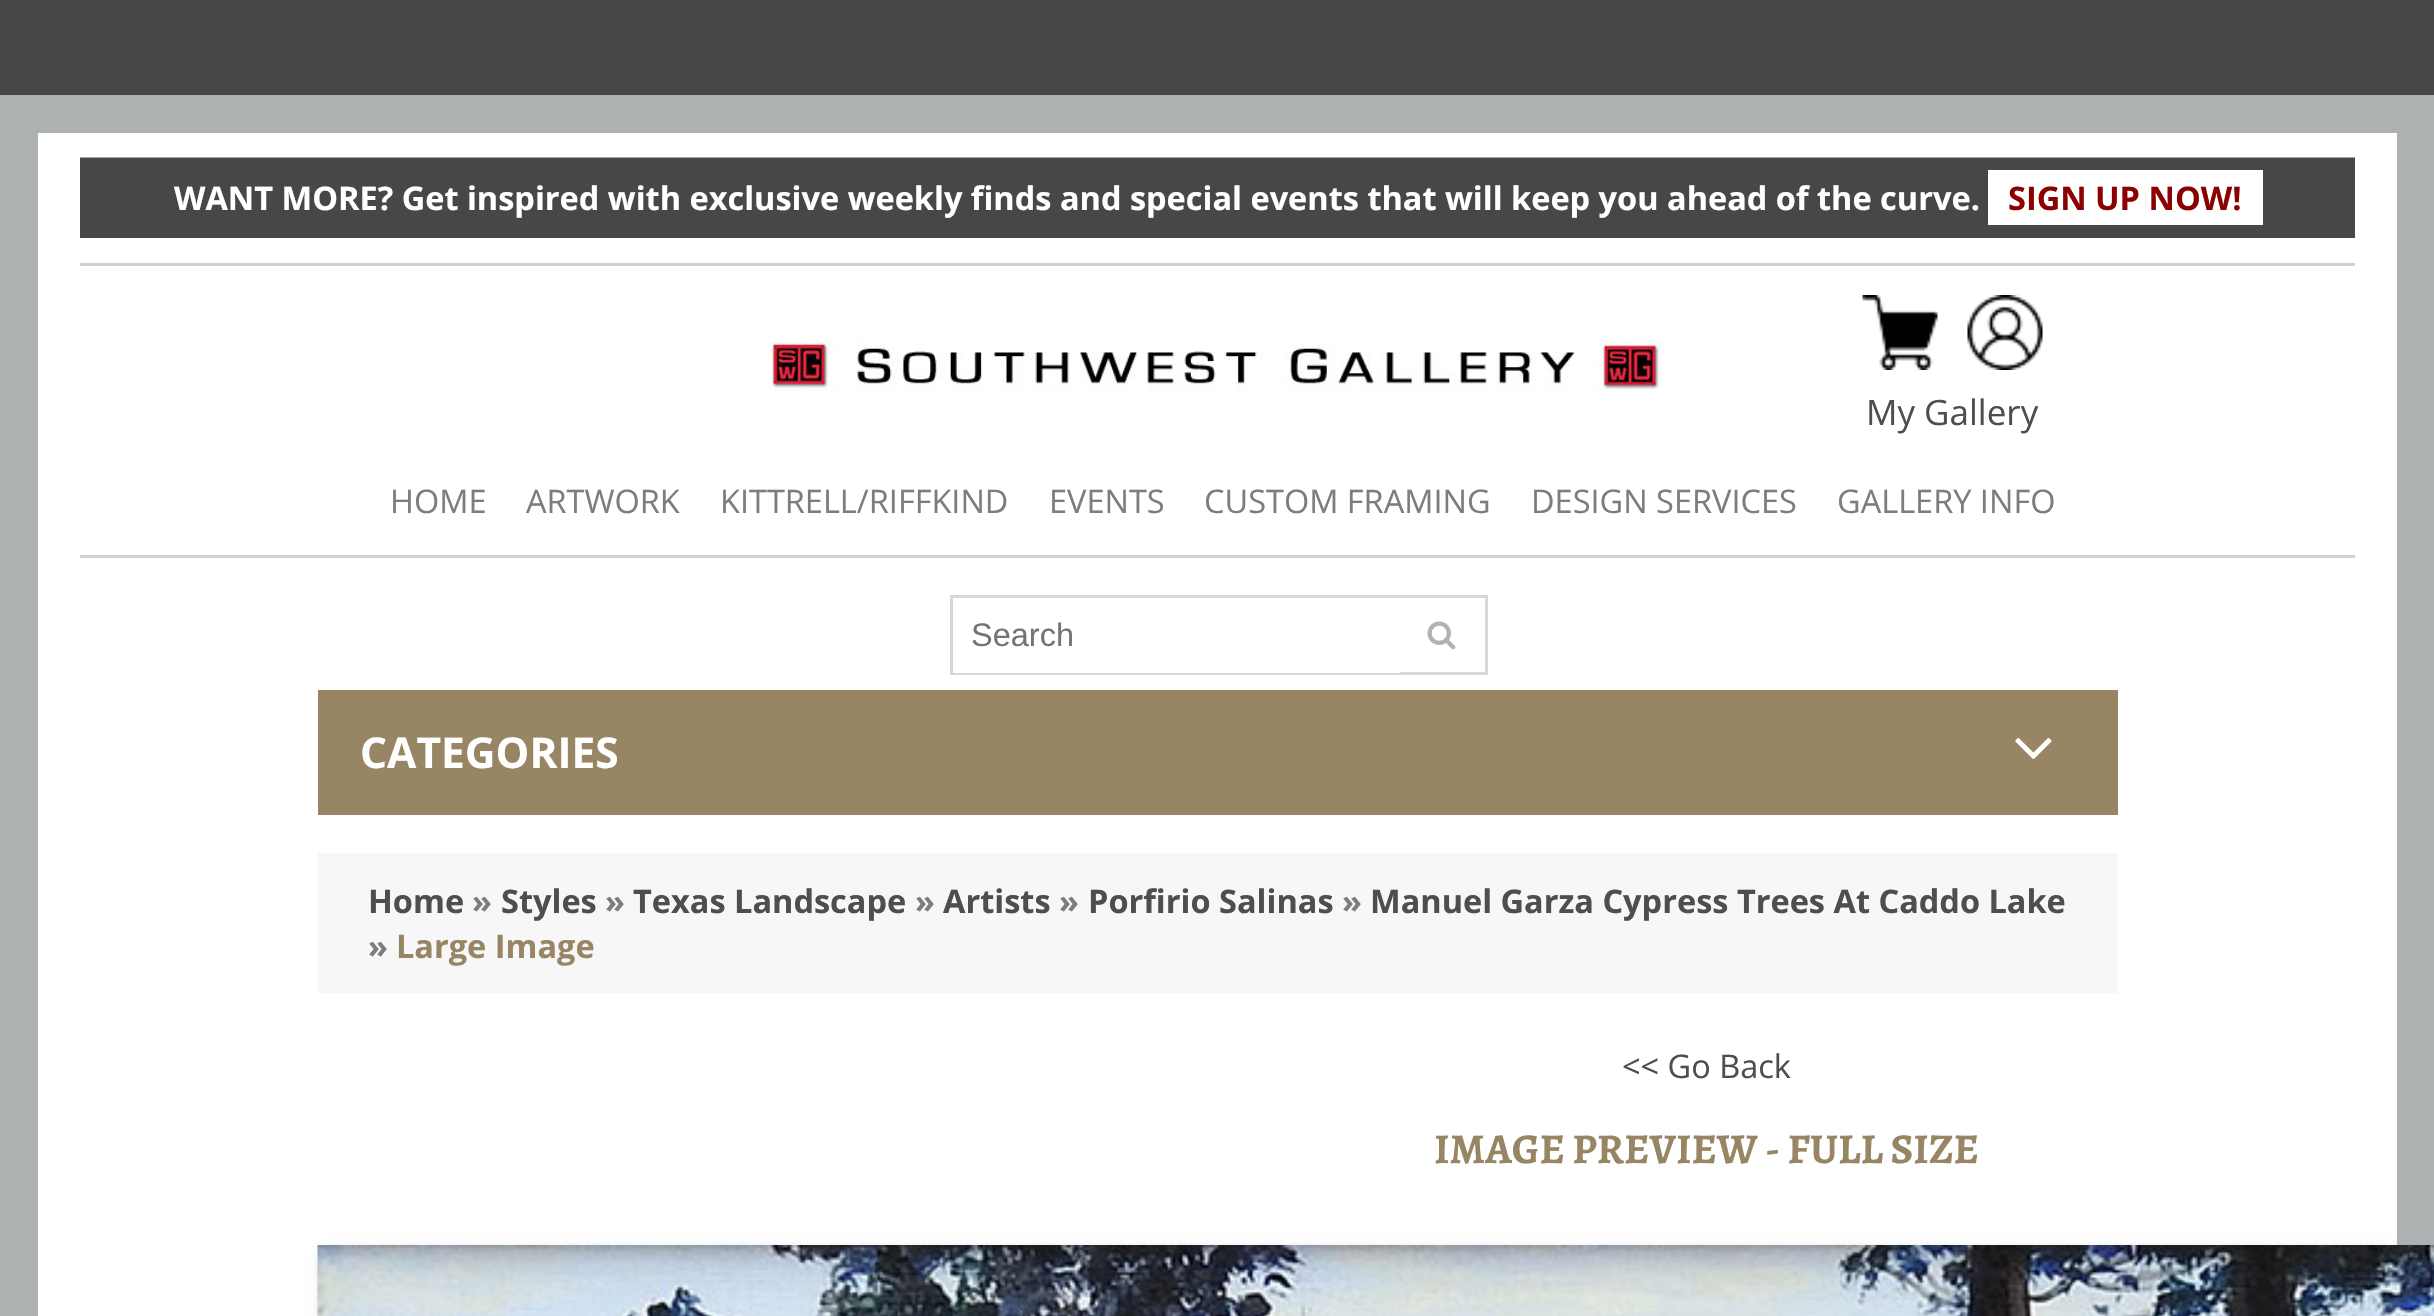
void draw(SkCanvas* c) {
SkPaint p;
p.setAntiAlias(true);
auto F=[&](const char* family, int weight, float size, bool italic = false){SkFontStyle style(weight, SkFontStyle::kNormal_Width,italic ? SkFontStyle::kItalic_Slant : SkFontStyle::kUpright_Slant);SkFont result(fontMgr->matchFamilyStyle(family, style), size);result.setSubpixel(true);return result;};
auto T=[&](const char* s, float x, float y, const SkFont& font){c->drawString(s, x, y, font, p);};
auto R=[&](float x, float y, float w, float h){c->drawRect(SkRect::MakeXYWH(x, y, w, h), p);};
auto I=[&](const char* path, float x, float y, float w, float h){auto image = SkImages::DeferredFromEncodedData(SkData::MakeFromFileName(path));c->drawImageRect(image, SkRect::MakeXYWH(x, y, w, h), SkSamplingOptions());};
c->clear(0xff484646);
p.setColor(0xffffffff);
c->drawRect(SkRect::MakeXYWH(19,114,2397,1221),p);
p.setStroke(true);
p.setStrokeWidth(38);
p.setColor(0xffadb1b1);
c->drawRect(SkRect::MakeXYWH(19,114,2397,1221),p);
p.setStroke(false);
p.setColor(0xff484747);
R(80,159,2275,79);
I("1.png",80,157,2275,2);
auto f1 = F("Open Sans",700,32.5);
p.setColor(0xffffffff);
T("WANT MORE? Get inspired with exclusive weekly finds and special events that will keep you ahead of the curve.",174,210,f1);
R(1988,170,275,55);
p.setColor(0xff8b0000);
T("SIGN UP NOW!",2008,210,f1);
p.setColor(0xffd1d1d1);
R(80,263,2275,3);
R(80,555,2275,3);
I("2.png",769,339,893,54);
I("3.png",1862,295,76,75);
I("4.png",1967,295,76,75);
auto f2 = F("Open Sans",400,35);
p.setColor(0xff4e4e4e);
T("My Gallery",1866,425,f2);
auto f3 = F("Open Sans",400,32.5);
p.setColor(0xff7d7d7d);
T("HOME",390,513,f3);
T("ARTWORK",526,513,f3);
T("KITTRELL/RIFFKIND",720,513,f3);
T("EVENTS",1049,513,f3);
T("CUSTOM FRAMING",1204,513,f3);
T("DESIGN SERVICES",1531,513,f3);
T("GALLERY INFO",1837,513,f3);
p.setStroke(true);
p.setStrokeWidth(3);
p.setColor(0xffd7d7d7);
c->drawRect(SkRect::MakeXYWH(951.5,596.5,535,77),p);
p.setStroke(false);
p.setColor(0xffffffff);
R(953,672,447,1);
auto f4 = F("Liberation Sans",400,32.5);
p.setColor(0xff757575);
T("Search",971,646,f4);
I("5.png",1427,621,29,29);
p.setColor(0xff978564);
R(318,690,1800,125);
auto f5 = F("Open Sans",700,42.5);
p.setColor(0xffffffff);
T("CATEGORIES",360,768,f5);
I("6.png",2015,738,37,22);
p.setColor(0xfff7f7f7);
R(318,853,1800,140);
p.setColor(0xff4e4e4e);
T("Home",368,913,f1);
p.setColor(0xff7d7d7d);
T("»",472,913,f1);
p.setColor(0xff4e4e4e);
T("Styles",501,913,f1);
p.setColor(0xff7d7d7d);
T("»",605,913,f1);
p.setColor(0xff4e4e4e);
T("Texas Landscape",633,913,f1);
p.setColor(0xff7d7d7d);
T("»",915,913,f1);
p.setColor(0xff4e4e4e);
T("Artists",943,913,f1);
p.setColor(0xff7d7d7d);
T("»",1059,913,f1);
p.setColor(0xff4e4e4e);
T("Porfirio Salinas",1088,913,f1);
p.setColor(0xff7d7d7d);
T("»",1342,913,f1);
p.setColor(0xff4e4e4e);
T("Manuel Garza Cypress Trees At Caddo Lake",1370,913,f1);
p.setColor(0xff7d7d7d);
T("»",368,958,f1);
p.setColor(0xff978564);
T("Large Image",396,958,f1);
p.setColor(0xff4e4e4e);
T("<< Go Back",1622,1078,f3);
auto f6 = F("Alegreya SC",700,42.5);
p.setColor(0xff978564);
T("IMAGE PREVIEW - FULL SIZE",1434,1163,f6);
p.setColor(0xff999999);
p.setMaskFilter(SkMaskFilter::MakeBlur(kNormal_SkBlurStyle, 6));
c->drawRect(SkRect::MakeXYWH(325,1253,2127,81),p);
p.setMaskFilter(nullptr);
I("7.png",317,1245,2117,71);
}
